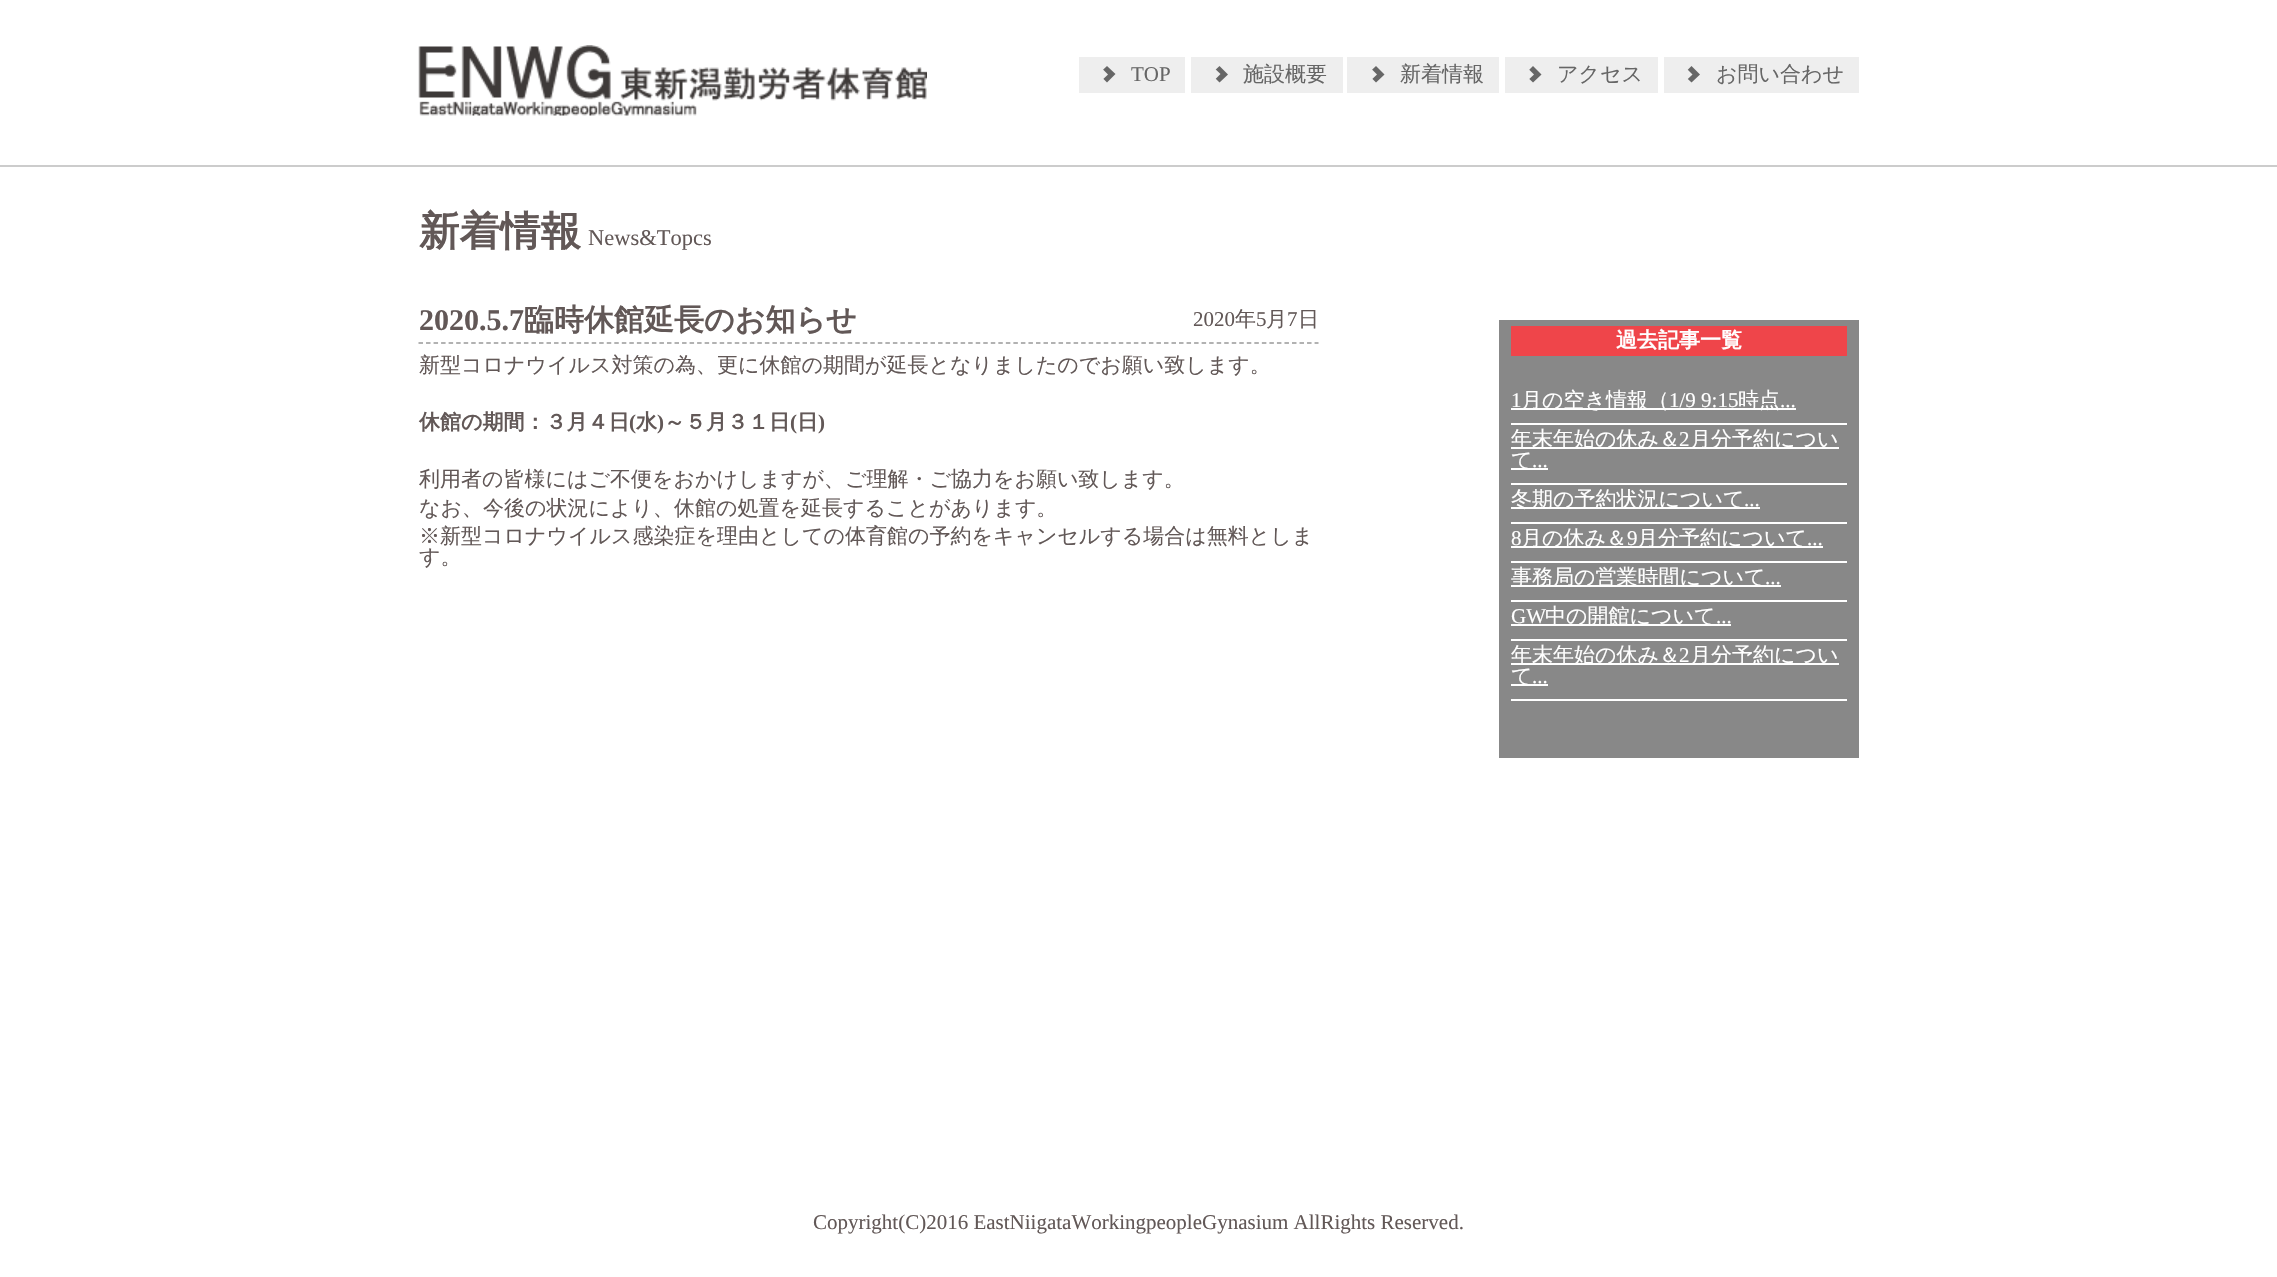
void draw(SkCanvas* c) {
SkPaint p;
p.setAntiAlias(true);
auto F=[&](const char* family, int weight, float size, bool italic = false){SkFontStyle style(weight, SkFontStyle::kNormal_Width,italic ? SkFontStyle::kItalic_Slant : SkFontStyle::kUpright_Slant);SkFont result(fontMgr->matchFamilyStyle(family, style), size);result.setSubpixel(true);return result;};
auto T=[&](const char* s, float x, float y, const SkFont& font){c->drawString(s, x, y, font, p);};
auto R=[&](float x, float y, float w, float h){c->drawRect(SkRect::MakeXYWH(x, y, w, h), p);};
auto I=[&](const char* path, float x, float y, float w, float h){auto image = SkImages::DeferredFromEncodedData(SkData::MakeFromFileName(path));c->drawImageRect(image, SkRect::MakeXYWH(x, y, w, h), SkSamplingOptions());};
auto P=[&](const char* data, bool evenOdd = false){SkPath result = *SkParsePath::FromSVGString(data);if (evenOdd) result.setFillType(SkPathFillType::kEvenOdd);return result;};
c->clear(0xffffffff);
p.setColor(0xffcccccc);
R(0,165,2277,2);
I("1.png",418,45,509,71);
p.setColor(0xffeeeeee);
R(1079,57,106,36);
p.setColor(0xff666666);
c->drawPath(P("M1107 66l8.5 8l-8.5 8.5l-8.5-8.5z"),p);
p.setColor(0xffeeeeee);
c->drawPath(P("M1099.5 66l8.5 8.5l-8.5 8l-8.5-8z"),p);
auto f1 = F("Liberation Serif",400,21);
p.setColor(0xff666666);
T("TOP",1131,81,f1);
p.setColor(0xffeeeeee);
R(1191,57,152,36);
p.setColor(0xff666666);
c->drawPath(P("M1219.5 66l8.5 8.5l-8.5 8l-8.5-8.5z"),p);
p.setColor(0xffeeeeee);
c->drawPath(P("M1212 66l8.5 8l-8.5 8.5l-8.5-8.5z"),p);
auto f2 = F("WenQuanYi Zen Hei",500,21);
p.setColor(0xff666666);
T("施設概要",1243,81,f2);
p.setColor(0xffeeeeee);
R(1347,57,152,36);
p.setColor(0xff666666);
c->drawPath(P("M1376 66l8.5 8.5l-8.5 8l-8.5-8.5z"),p);
p.setColor(0xffeeeeee);
c->drawPath(P("M1368.5 66l8.5 8.5l-8.5 8l-8.5-8.5z"),p);
p.setColor(0xff666666);
T("新着情報",1400,81,f2);
p.setColor(0xffeeeeee);
R(1505,57,153,36);
p.setColor(0xff666666);
c->drawPath(P("M1533 66l8.5 8.5l-8.5 8l-8.5-8z"),p);
p.setColor(0xffeeeeee);
c->drawPath(P("M1525.5 66l8.5 8.5l-8.5 8l-8.5-8.5z"),p);
p.setColor(0xff666666);
T("アクセス",1557,81,f2);
p.setColor(0xffeeeeee);
R(1664,57,195,36);
p.setColor(0xff666666);
c->drawPath(P("M1691.5 66l8.5 8.5l-8.5 8l-8.5-8z"),p);
p.setColor(0xffeeeeee);
c->drawPath(P("M1684 66l8.5 8.5l-8.5 8l-8.5-8z"),p);
p.setColor(0xff666666);
T("お問い合わせ",1716,81,f2);
auto f3 = F("WenQuanYi Zen Hei",700,40.5);
p.setColor(0xff625857);
T("新着情報",419,245,f3);
auto f4 = F("Liberation Serif",400,22.5);
T("News&Topcs",588,245,f4);
p.setStroke(true);
p.setStrokeWidth(1.5);
p.setColor(0xff999999);
p.setPathEffect(SkDashPathEffect::Make({{4.5f,3.03f}}, 0));
c->drawPath(P("M418.5 343h900"),p);
p.setPathEffect(nullptr);
auto f5 = F("Liberation Serif",700,30);
p.setStroke(false);
p.setColor(0xff625857);
T("2020.5.7",419,330,f5);
auto f6 = F("WenQuanYi Zen Hei",700,30);
T("臨時休館延長のお知らせ",524,330,f6);
T("2020",1193,326,f1);
T("年",1235,326,f2);
T("5",1256,326,f1);
T("月",1266,326,f2);
T("7",1287,326,f1);
T("日",1298,326,f2);
T("新型コロナウイルス対策の為、更に休館の期間が延長となりましたのでお願い致します。",419,372,f2);
auto f7 = F("WenQuanYi Zen Hei",700,21);
T("休館の期間：３月４日",419,429,f7);
auto f8 = F("Liberation Serif",700,21);
T("(",629,429,f8);
T("水",636,429,f7);
T(")",657,429,f8);
T("～５月３１日",664,429,f7);
T("(",790,429,f8);
T("日",797,429,f7);
T(")",818,429,f8);
T("利用者の皆様にはご不便をおかけしますが、ご理解・ご協力をお願い致します。",419,486,f2);
T("なお、今後の状況により、休館の処置を延長することがあります。",419,515,f2);
T("※新型コロナウイルス感染症を理由としての体育館の予約をキャンセルする場合は無料としま",419,543,f2);
T("す。",419,564,f2);
p.setColor(0xff888888);
R(1499,320,360,438);
p.setColor(0xffef454a);
R(1511,326,336,30);
p.setColor(0xffffffff);
T("過去記事一覧",1616,347,f7);
R(1511,423,336,2);
T("1",1511,407,f1);
R(1511,408,285,2);
T("月の空き情報（",1521,407,f2);
T("1/9 9:15",1669,407,f1);
T("時点",1738,407,f2);
T("...",1780,407,f1);
R(1511,483,336,2);
R(1511,447,328,2);
T("年末年始の休み＆",1511,446,f2);
T("2",1679,446,f1);
T("月分予約につい",1690,446,f2);
R(1511,468,37,2);
T("て",1511,467,f2);
T("...",1532,467,f1);
R(1511,522,336,2);
R(1511,507,249,2);
T("冬期の予約状況について",1511,506,f2);
T("...",1744,506,f1);
R(1511,561,336,2);
T("8",1511,545,f1);
R(1511,546,312,2);
T("月の休み＆",1521,545,f2);
T("9",1627,545,f1);
T("月分予約について",1637,545,f2);
T("...",1807,545,f1);
R(1511,600,336,2);
R(1511,585,270,2);
T("事務局の営業時間について",1511,584,f2);
T("...",1765,584,f1);
R(1511,639,336,2);
T("GW",1511,623,f1);
R(1511,624,220,2);
T("中の開館について",1545,623,f2);
T("...",1716,623,f1);
R(1511,699,336,2);
R(1511,663,328,2);
T("年末年始の休み＆",1511,662,f2);
T("2",1679,662,f1);
T("月分予約につい",1690,662,f2);
R(1511,684,37,2);
T("て",1511,683,f2);
T("...",1532,683,f1);
p.setColor(0xff625857);
T("Copyright(C)2016 EastNiigataWorkingpeopleGynasium AllRights Reserved.",813,1229,f1);
}
